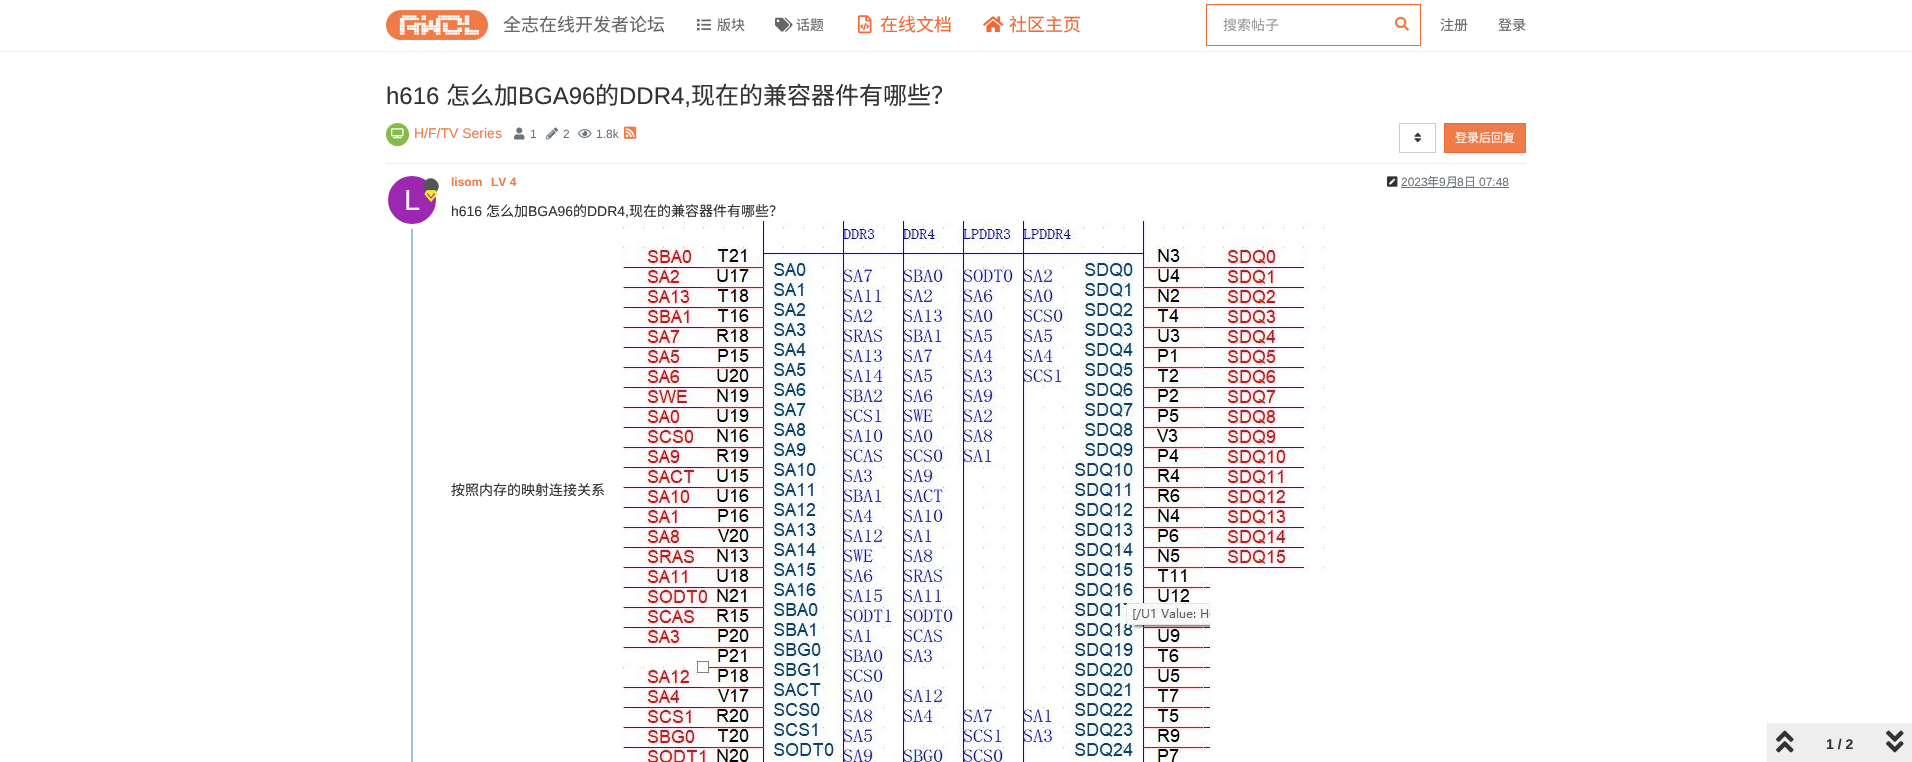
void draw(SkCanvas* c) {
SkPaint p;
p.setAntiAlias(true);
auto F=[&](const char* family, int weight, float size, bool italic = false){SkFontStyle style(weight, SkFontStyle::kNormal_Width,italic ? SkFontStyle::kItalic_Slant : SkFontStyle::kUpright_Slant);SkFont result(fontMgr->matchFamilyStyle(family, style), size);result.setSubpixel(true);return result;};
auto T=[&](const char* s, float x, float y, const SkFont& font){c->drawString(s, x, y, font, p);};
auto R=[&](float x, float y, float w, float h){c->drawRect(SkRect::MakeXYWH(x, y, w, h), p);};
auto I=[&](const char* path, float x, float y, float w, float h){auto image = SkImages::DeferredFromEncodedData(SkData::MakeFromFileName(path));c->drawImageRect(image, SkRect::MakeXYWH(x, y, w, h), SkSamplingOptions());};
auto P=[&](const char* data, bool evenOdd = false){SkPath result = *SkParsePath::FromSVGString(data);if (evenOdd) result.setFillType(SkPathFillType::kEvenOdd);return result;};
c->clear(0xffffffff);
p.setColor(0xffeeeeee);
R(0,51,1912,1);
I("1.png",386,10,103,31);
auto f1 = F("Noto Sans CJK SC",400,18);
p.setColor(0xff666666);
T("全志在线开发者论坛",503,31,f1);
I("2.png",697,19,14,12);
auto f2 = F("Noto Sans CJK SC",400,14);
T("版块",717,30,f2);
I("3.png",775,17,18,15);
T("话题",796,30,f2);
I("4.png",858,15,14,19);
p.setColor(0xffee6a37);
T("在线文档",880,31,f1);
I("5.png",983,16,21,17);
T("社区主页",1009,31,f1);
p.setColor(0xffececec);
R(1207,5,213,1);
p.setStroke(true);
p.setStrokeWidth(1);
p.setColor(0xffee6a37);
c->drawRect(SkRect::MakeXYWH(1206.5,4.5,214,41),p);
p.setStroke(false);
p.setColor(0xff999999);
T("搜索帖子",1223,30,f2);
I("6.png",1395,16,14,15);
p.setColor(0xff666666);
T("注册",1440,30,f2);
T("登录",1498,30,f2);
auto f3 = F("Liberation Sans",400,24);
p.setColor(0xff333333);
T("h616",386,104,f3);
auto f4 = F("Noto Sans CJK SC",400,24);
T("怎么加",446,104,f4);
T("BGA96",518,104,f3);
T("的",595,104,f4);
T("DDR4,",619,104,f3);
T("现在的兼容器件有哪些？",691,104,f4);
p.setColor(0xffeeeeee);
R(386,163,1140,1);
p.setColor(0xff86ba4b);
c->drawCircle(397.5,134.5,11.5,p);
I("7.png",391,128,13,11);
auto f5 = F("Liberation Sans",400,14);
p.setColor(0xffef7b48);
T("H/F/TV Series",414,138,f5);
I("8.png",514,127,11,13);
auto f6 = F("Liberation Sans",400,12);
p.setColor(0xff6c757d);
T("1",530,138,f6);
I("9.png",546,127,12,13);
T("2",563,138,f6);
I("10.png",578,129,14,9);
T("1.8k",596,138,f6);
I("11.png",624,126,13,13);
p.setStroke(true);
p.setColor(0xffcccccc);
c->drawRect(SkRect::MakeXYWH(1399.5,123.5,36,29),p);
I("12.png",1414,132,8,11);
p.setStroke(false);
p.setColor(0xffef7b48);
c->drawRect(SkRect::MakeXYWH(1444.5,123.5,81,29),p);
p.setStroke(true);
p.setColor(0xffee6a37);
c->drawRect(SkRect::MakeXYWH(1444.5,123.5,81,29),p);
auto f7 = F("Noto Sans CJK SC",400,12);
p.setStroke(false);
p.setColor(0xffffffff);
T("登录后回复",1455,142,f7);
p.setColor(0xffa0c4e4);
R(411,174,2,588);
auto f8 = F("Liberation Sans",700,12);
p.setColor(0xffef7b48);
T("lisom",451,186,f8);
T("LV 4",491,186,f8);
I("13.png",1387,176,11,11);
p.setColor(0xff6c757d);
T("2023",1401,186,f6);
R(1401,187,108,1);
T("年",1427,186,f7);
T("9",1439,186,f6);
T("月",1446,186,f7);
T("8",1457,186,f6);
T("日",1464,186,f7);
T("07:48",1479,186,f6);
p.setStroke(true);
p.setStrokeWidth(5);
p.setColor(0xffffffff);
c->drawCircle(412,200,26.5,p);
p.setStroke(false);
p.setColor(0xff9c27b0);
c->drawCircle(412,200,24,p);
p.setColor(0xff555555);
c->drawPath(P("M425.5 180.5c7-7 18 4 11 11c-7 7-18-4-11-11z"),p);
auto f9 = F("Liberation Sans",400,29);
p.setColor(0xffeeeeee);
T("L",404,210,f9);
I("14.png",424,190,14,12);
p.setColor(0xff333333);
T("h616",451,216,f5);
T("怎么加",486,216,f2);
T("BGA96",528,216,f5);
T("的",573,216,f2);
T("DDR4,",587,216,f5);
T("现在的兼容器件有哪些？",629,216,f2);
T("按照内存的映射连接关系",451,495,f2);
I("15.png",621,221,704,541);
p.setColor(0xffeeeeee);
R(1767,723,145,39);
I("16.png",1776,730,18,23);
auto f10 = F("Liberation Sans",700,14);
p.setColor(0xff333333);
T("1 / 2",1826,749,f10);
I("17.png",1886,730,18,23);
}
